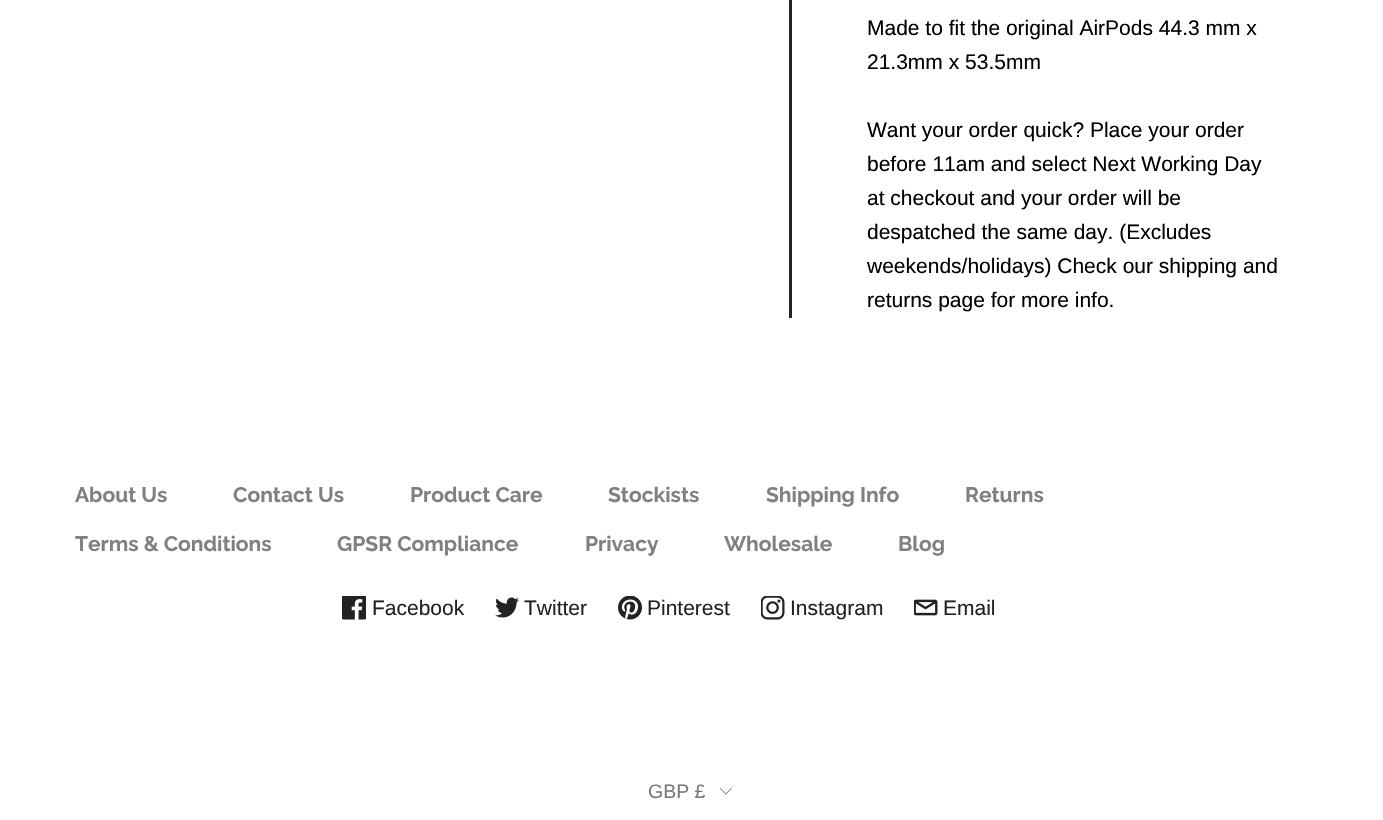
void draw(SkCanvas* c) {
SkPaint p;
p.setAntiAlias(true);
auto F=[&](const char* family, int weight, float size, bool italic = false){SkFontStyle style(weight, SkFontStyle::kNormal_Width,italic ? SkFontStyle::kItalic_Slant : SkFontStyle::kUpright_Slant);SkFont result(fontMgr->matchFamilyStyle(family, style), size);result.setSubpixel(true);return result;};
auto T=[&](const char* s, float x, float y, const SkFont& font){c->drawString(s, x, y, font, p);};
auto R=[&](float x, float y, float w, float h){c->drawRect(SkRect::MakeXYWH(x, y, w, h), p);};
auto I=[&](const char* path, float x, float y, float w, float h){auto image = SkImages::DeferredFromEncodedData(SkData::MakeFromFileName(path));c->drawImageRect(image, SkRect::MakeXYWH(x, y, w, h), SkSamplingOptions());};
c->clear(0xffffffff);
p.setColor(0xff222222);
R(789,0,3,318);
auto f1 = F("Liberation Sans",400,21);
p.setColor(0xff000000);
T("Made to fit the original AirPods 44.3 mm x",867,35,f1);
T("21.3mm x 53.5mm",867,69,f1);
T("Want your order quick? Place your order",867,137,f1);
T("before 11am and select Next Working Day",867,171,f1);
T("at checkout and your order will be",867,205,f1);
T("despatched the same day. (Excludes",867,239,f1);
T("weekends/holidays) Check our shipping and",867,273,f1);
T("returns page for more info.",867,307,f1);
auto f2 = F("Raleway",700,21);
p.setColor(0xff808080);
T("About Us",75,502,f2);
T("Contact Us",233,502,f2);
T("Product Care",410,502,f2);
T("Stockists",608,502,f2);
T("Shipping Info",766,502,f2);
T("Returns",965,502,f2);
T("Terms & Conditions",75,551,f2);
T("GPSR Compliance",337,551,f2);
T("Privacy",585,551,f2);
T("Wholesale",724,551,f2);
T("Blog",898,551,f2);
I("1.png",342,596,24,24);
p.setColor(0xff222222);
T("Facebook",372,615,f1);
I("2.png",495,597,24,21);
T("Twitter",524,615,f1);
I("3.png",618,596,24,24);
T("Pinterest",647,615,f1);
I("4.png",761,596,24,24);
T("Instagram",790,615,f1);
I("5.png",914,599,24,17);
T("Email",943,615,f1);
auto f3 = F("Liberation Sans",400,19.5);
p.setColor(0xff787878);
T("GBP £",648,798,f3);
I("6.png",719,787,13,8);
}
